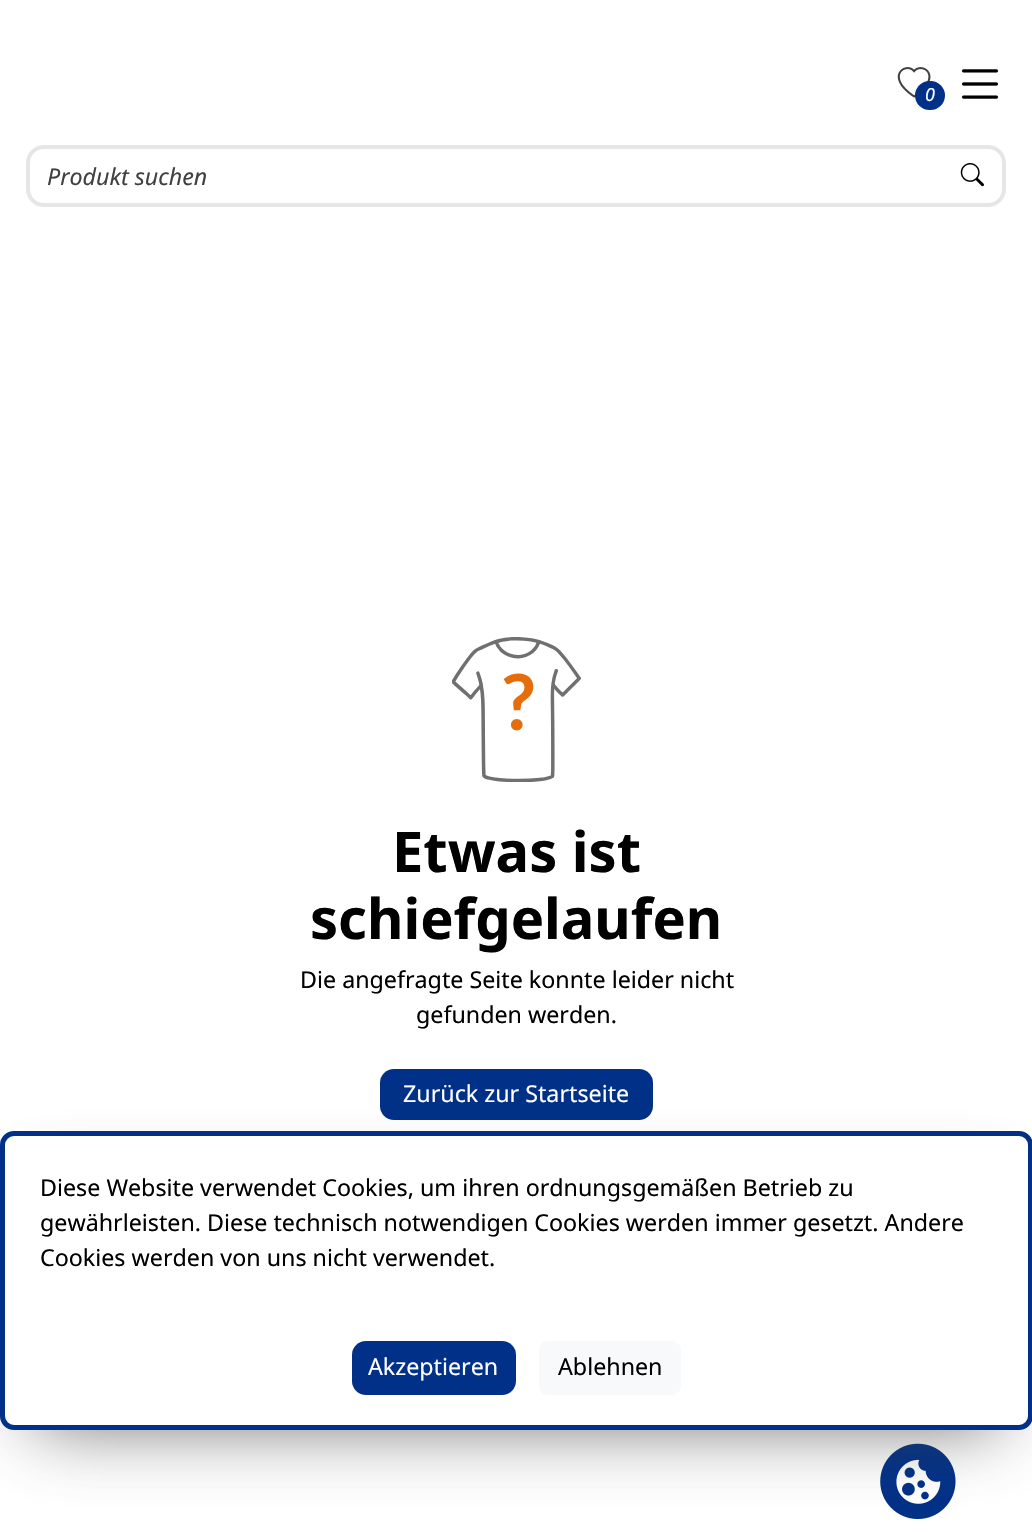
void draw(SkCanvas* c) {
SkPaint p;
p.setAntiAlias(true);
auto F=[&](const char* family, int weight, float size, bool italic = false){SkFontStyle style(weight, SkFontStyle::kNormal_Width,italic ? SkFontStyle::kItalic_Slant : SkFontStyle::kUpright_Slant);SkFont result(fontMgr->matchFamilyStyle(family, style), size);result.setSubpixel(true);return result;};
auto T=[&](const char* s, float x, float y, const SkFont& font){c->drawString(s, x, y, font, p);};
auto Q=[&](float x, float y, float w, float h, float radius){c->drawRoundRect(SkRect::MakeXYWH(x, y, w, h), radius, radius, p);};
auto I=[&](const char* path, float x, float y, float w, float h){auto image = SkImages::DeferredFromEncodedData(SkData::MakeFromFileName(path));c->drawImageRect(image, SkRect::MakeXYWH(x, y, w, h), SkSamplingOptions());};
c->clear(0xffffffff);
I("1.png",897,67,34,31);
p.setColor(0xff003087);
Q(915,81,30,29,14.5);
auto f1 = F("Noto Sans",400,18,true);
p.setColor(0xffffffff);
T("0",925,101,f1);
I("2.png",962,69,36,30);
p.setStroke(true);
p.setStrokeWidth(4);
p.setColor(0xffe6e6e6);
c->drawRoundRect(SkRect::MakeXYWH(28,147,976,58),16,16,p);
auto f2 = F("Noto Sans",400,23.25,true);
p.setStroke(false);
p.setColor(0xff414141);
T("Produkt suchen",47,185,f2);
I("3.png",960,163,24,24);
I("4.png",452,637,129,145);
auto f3 = F("Noto Sans",700,56);
p.setColor(0xff000000);
T("Etwas ist",392,872,f3);
T("schiefgelaufen",310,939,f3);
auto f4 = F("Noto Sans",400,23.25);
T("Die angefragte Seite konnte leider nicht",300,988,f4);
T("gefunden werden.",416,1023,f4);
p.setColor(0xff003087);
Q(380,1069,273,51,14);
p.setColor(0xffffffff);
T("Zurück zur Startseite",403,1102,f4);
I("5.png",880,1443,76,76);
p.setColor(0xd1414141);
p.setMaskFilter(SkMaskFilter::MakeBlur(kNormal_SkBlurStyle, 35));
c->drawRect(SkRect::MakeXYWH(35,1194,963,229),p);
p.setMaskFilter(nullptr);
p.setColor(0xffffffff);
c->drawRoundRect(SkRect::MakeXYWH(2.5,1133.5,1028,294),11.5,11.5,p);
p.setStroke(true);
p.setStrokeWidth(5);
p.setColor(0xff003087);
c->drawRoundRect(SkRect::MakeXYWH(2.5,1133.5,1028,294),11.5,11.5,p);
p.setStroke(false);
p.setColor(0xff000000);
T("Diese Website verwendet Cookies, um ihren ordnungsgemäßen Betrieb zu",40,1196,f4);
T("gewährleisten. Diese technisch notwendigen Cookies werden immer gesetzt. Andere",40,1231,f4);
T("Cookies werden von uns nicht verwendet.",40,1266,f4);
p.setColor(0xff003087);
Q(352,1341,164,54,14);
p.setColor(0xffffffff);
T("Akzeptieren",368,1375,f4);
p.setColor(0xfff8f9fa);
Q(539,1341,142,54,9);
p.setColor(0xff000000);
T("Ablehnen",558,1375,f4);
}
